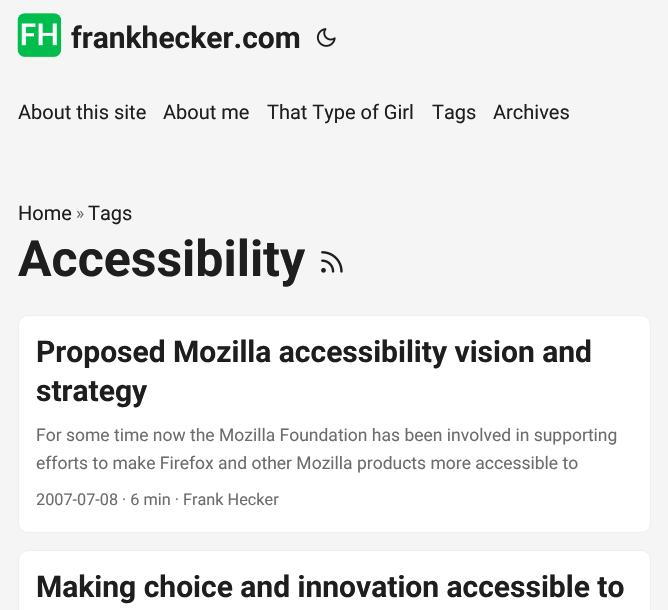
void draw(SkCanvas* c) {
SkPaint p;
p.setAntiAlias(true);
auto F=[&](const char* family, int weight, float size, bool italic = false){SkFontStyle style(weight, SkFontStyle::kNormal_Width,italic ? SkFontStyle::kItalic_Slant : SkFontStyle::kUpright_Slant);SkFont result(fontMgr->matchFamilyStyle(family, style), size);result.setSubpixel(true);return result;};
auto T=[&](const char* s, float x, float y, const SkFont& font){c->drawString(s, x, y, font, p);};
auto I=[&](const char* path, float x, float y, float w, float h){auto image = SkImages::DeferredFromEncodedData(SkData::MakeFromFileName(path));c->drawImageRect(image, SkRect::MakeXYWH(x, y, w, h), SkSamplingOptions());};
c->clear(0xfff5f5f5);
I("1.png",17,13,45,44);
auto f1 = F("Roboto",700,30);
p.setColor(0xff1e1e1e);
T("frankhecker.com",71,48,f1);
I("2.png",316,28,20,19);
auto f2 = F("Roboto",400,20);
T("About this site",18,119,f2);
T("About me",163,119,f2);
T("That Type of Girl",267,119,f2);
T("Tags",432,119,f2);
T("Archives",493,119,f2);
T("Home",18,220,f2);
auto f3 = F("Roboto",400,17.5);
p.setColor(0xff6c6c6c);
T("»",76,219,f3);
p.setColor(0xff1e1e1e);
T("Tags",88,220,f2);
auto f4 = F("Roboto",700,50);
T("Accessibility",18,276,f4);
I("3.png",321,251,22,22);
p.setColor(0xffffffff);
c->drawRoundRect(SkRect::MakeXYWH(18.5,315.5,632,217),9.5,9.5,p);
p.setStroke(true);
p.setStrokeWidth(1);
p.setColor(0xffeeeeee);
c->drawRoundRect(SkRect::MakeXYWH(18.5,315.5,632,217),9.5,9.5,p);
p.setStroke(false);
p.setColor(0xff1e1e1e);
T("Proposed Mozilla accessibility vision and",36,362,f1);
T("strategy",36,401,f1);
p.setColor(0xff6c6c6c);
T("For some time now the Mozilla Foundation has been involved in supporting",36,441,f3);
T("efforts to make Firefox and other Mozilla products more accessible to",36,469,f3);
auto f5 = F("Roboto",400,16.25);
T("2007-07-08 · 6 min · Frank Hecker",36,505,f5);
p.setColor(0xffffffff);
c->drawRoundRect(SkRect::MakeXYWH(18.5,550.5,632,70),9.5,9.5,p);
p.setStroke(true);
p.setColor(0xffeeeeee);
c->drawRoundRect(SkRect::MakeXYWH(18.5,550.5,632,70),9.5,9.5,p);
p.setStroke(false);
p.setColor(0xff1e1e1e);
T("Making choice and innovation accessible to",36,597,f1);
}
